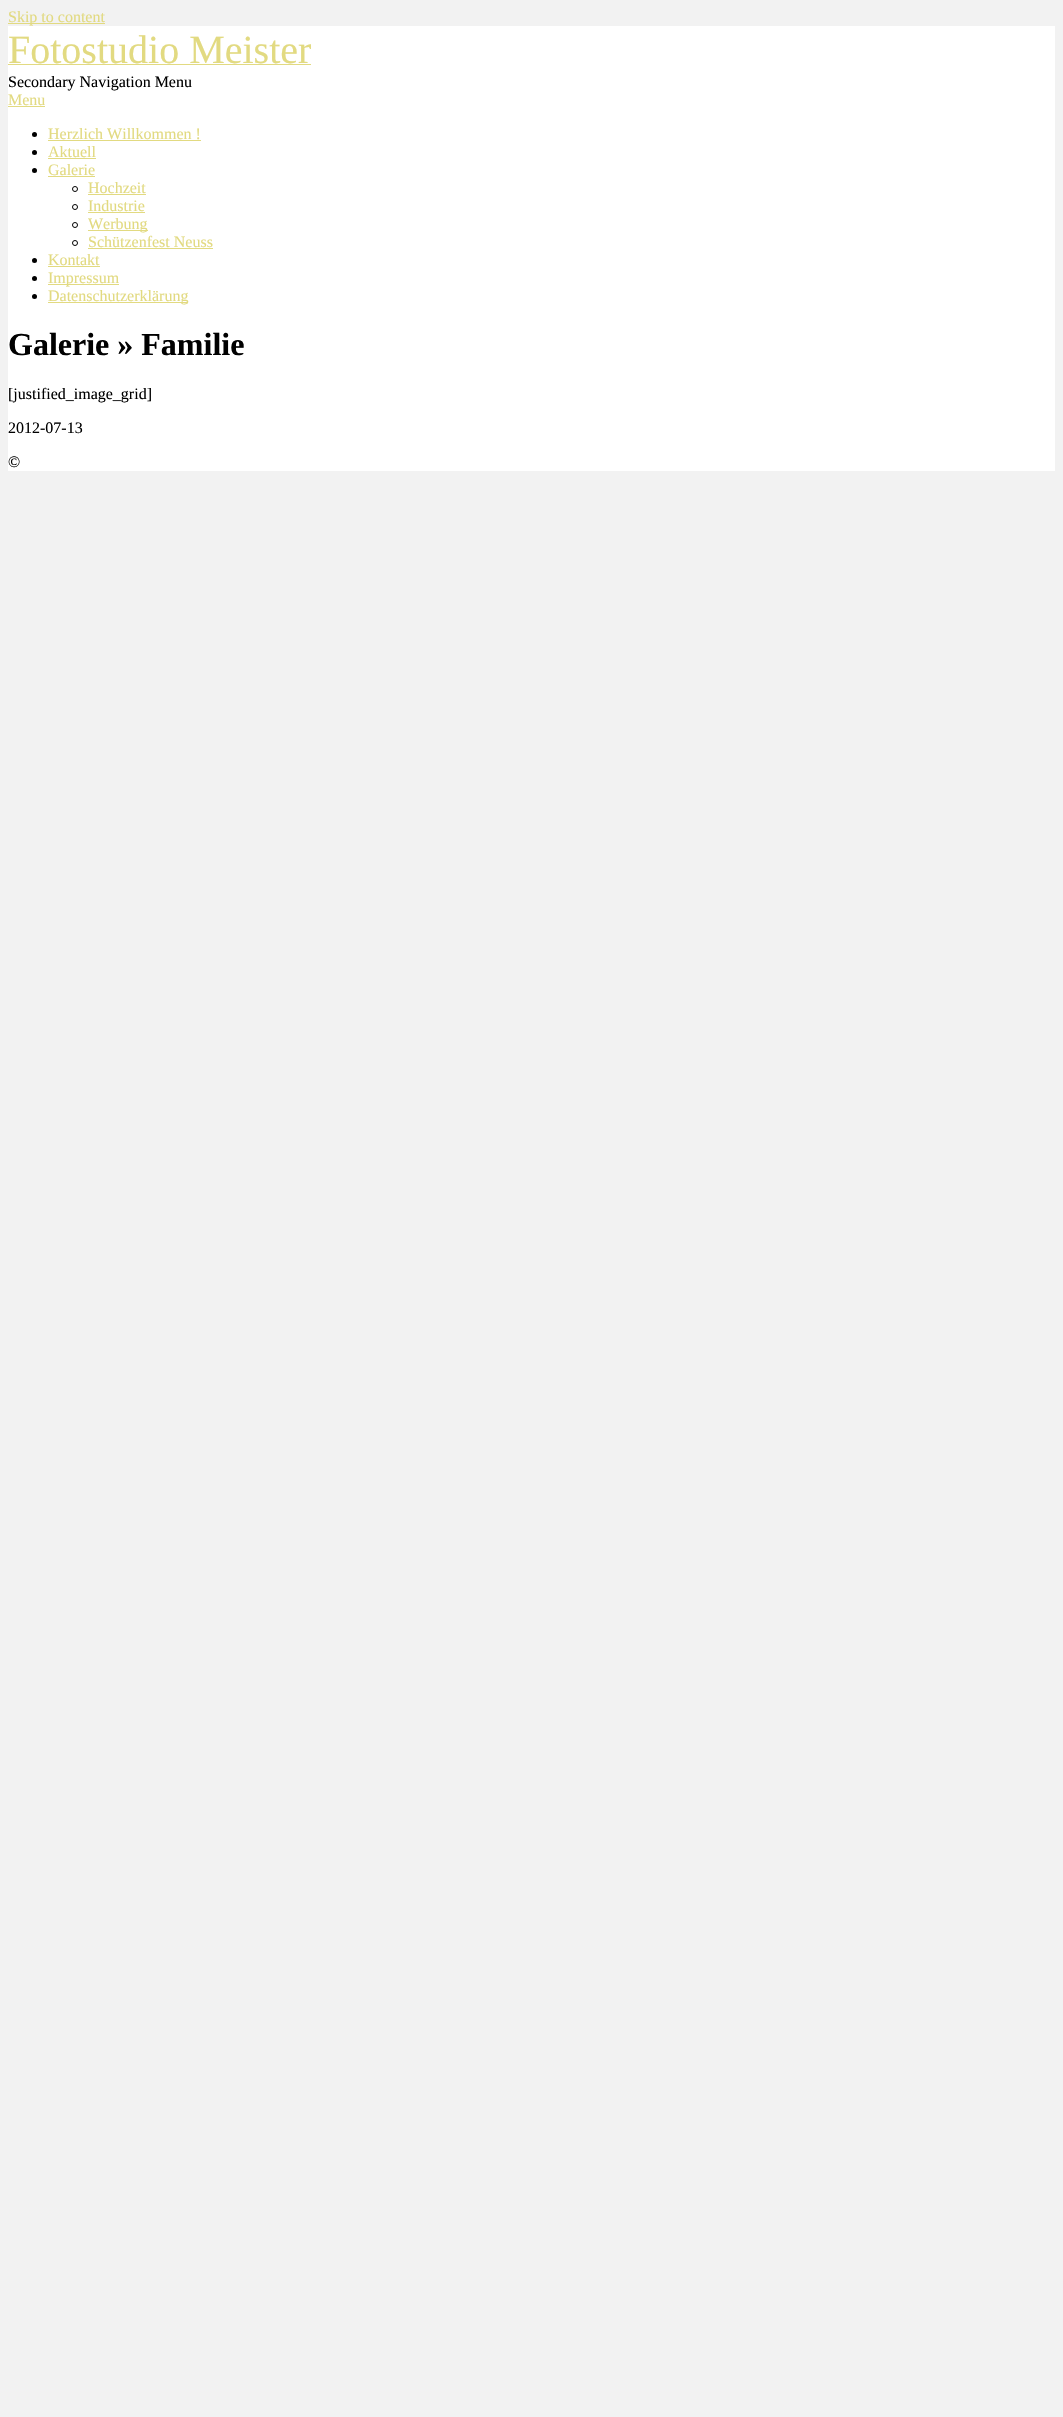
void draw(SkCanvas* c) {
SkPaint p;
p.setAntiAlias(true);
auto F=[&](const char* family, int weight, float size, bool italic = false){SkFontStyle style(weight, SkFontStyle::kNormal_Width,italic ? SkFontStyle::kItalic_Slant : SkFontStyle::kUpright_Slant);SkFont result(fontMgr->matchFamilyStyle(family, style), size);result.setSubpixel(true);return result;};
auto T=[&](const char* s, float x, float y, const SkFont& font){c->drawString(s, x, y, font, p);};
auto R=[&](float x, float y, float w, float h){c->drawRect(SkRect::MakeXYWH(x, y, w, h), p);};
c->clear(0xfff2f2f2);
p.setColor(0xffe2da81);
R(8,23,97,1);
auto f1 = F("Liberation Serif",400,16);
T("Skip to content",8,22,f1);
p.setColor(0xffffffff);
R(8,26,1047,445);
auto f2 = F("Liberation Serif",400,40);
p.setColor(0xffe2da81);
T("Fotostudio Meister",8,63,f2);
R(8,64,303,1);
p.setColor(0xff000000);
T("Secondary Navigation Menu",8,87,f1);
p.setColor(0xffe2da81);
T("Menu",8,105,f1);
R(8,106,37,1);
p.setColor(0xff000000);
c->drawCircle(34.5,134.5,2.5,p);
p.setColor(0xffe2da81);
T("Herzlich Willkommen !",48,139,f1);
R(48,140,153,1);
p.setColor(0xff000000);
c->drawCircle(34.5,152.5,2.5,p);
p.setColor(0xffe2da81);
T("Aktuell",48,157,f1);
R(48,158,48,1);
p.setColor(0xff000000);
c->drawCircle(34.5,170.5,2.5,p);
p.setColor(0xffe2da81);
T("Galerie",48,175,f1);
R(48,176,47,1);
p.setStroke(true);
p.setStrokeWidth(1);
p.setColor(0xff000000);
c->drawCircle(75,189,2.5,p);
p.setStroke(false);
p.setColor(0xffe2da81);
T("Hochzeit",88,193,f1);
R(88,194,58,1);
p.setStroke(true);
p.setColor(0xff000000);
c->drawCircle(75,207,2.5,p);
p.setStroke(false);
p.setColor(0xffe2da81);
T("Industrie",88,211,f1);
R(88,212,57,1);
p.setStroke(true);
p.setColor(0xff000000);
c->drawCircle(75,225,2.5,p);
p.setStroke(false);
p.setColor(0xffe2da81);
R(88,230,60,1);
T("Werbung",88,229,f1);
p.setStroke(true);
p.setColor(0xff000000);
c->drawCircle(75,243,2.5,p);
p.setStroke(false);
p.setColor(0xffe2da81);
T("Schützenfest Neuss",88,247,f1);
R(88,248,125,1);
p.setColor(0xff000000);
c->drawCircle(34.5,260.5,2.5,p);
p.setColor(0xffe2da81);
T("Kontakt",48,265,f1);
R(48,266,52,1);
p.setColor(0xff000000);
c->drawCircle(34.5,278.5,2.5,p);
p.setColor(0xffe2da81);
R(48,284,71,1);
T("Impressum",48,283,f1);
p.setColor(0xff000000);
c->drawCircle(34.5,296.5,2.5,p);
p.setColor(0xffe2da81);
R(48,302,140,1);
T("Datenschutzerklärung",48,301,f1);
auto f3 = F("Liberation Serif",700,32);
p.setColor(0xff000000);
T("Galerie » Familie",8,355,f3);
T("[justified_image_grid]",8,399,f1);
T("2012-07-13",8,433,f1);
T("©",8,467,f1);
}
